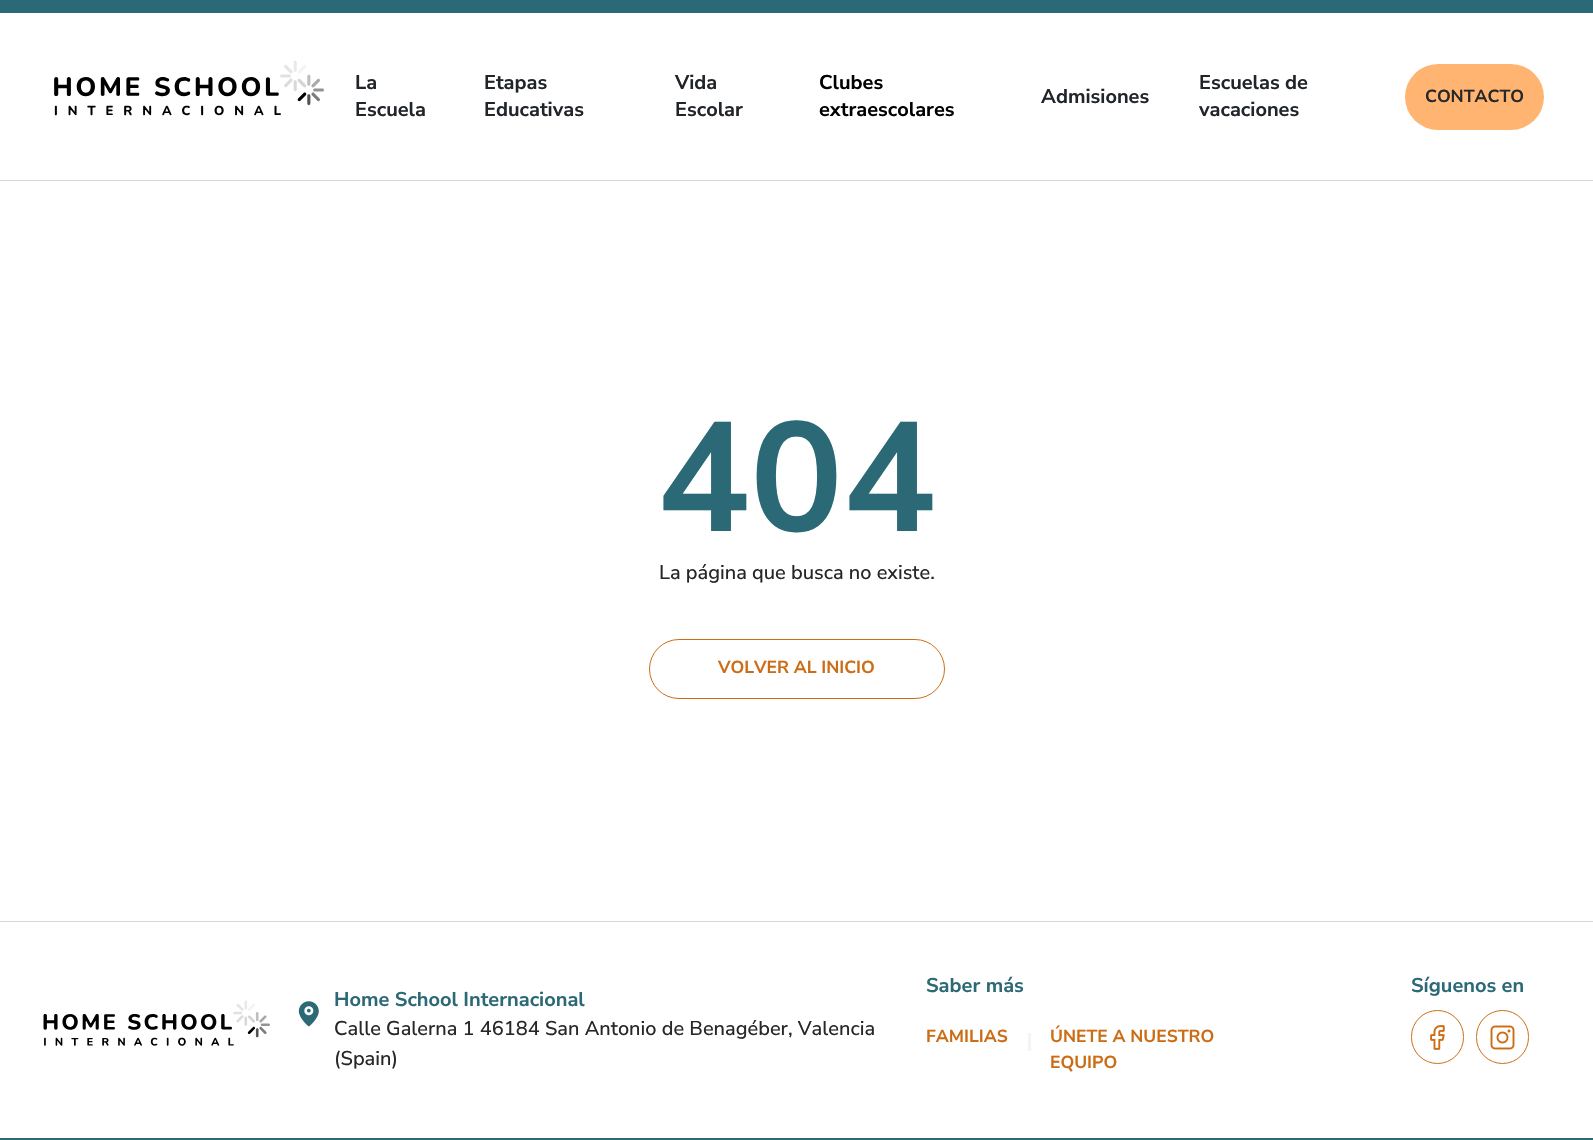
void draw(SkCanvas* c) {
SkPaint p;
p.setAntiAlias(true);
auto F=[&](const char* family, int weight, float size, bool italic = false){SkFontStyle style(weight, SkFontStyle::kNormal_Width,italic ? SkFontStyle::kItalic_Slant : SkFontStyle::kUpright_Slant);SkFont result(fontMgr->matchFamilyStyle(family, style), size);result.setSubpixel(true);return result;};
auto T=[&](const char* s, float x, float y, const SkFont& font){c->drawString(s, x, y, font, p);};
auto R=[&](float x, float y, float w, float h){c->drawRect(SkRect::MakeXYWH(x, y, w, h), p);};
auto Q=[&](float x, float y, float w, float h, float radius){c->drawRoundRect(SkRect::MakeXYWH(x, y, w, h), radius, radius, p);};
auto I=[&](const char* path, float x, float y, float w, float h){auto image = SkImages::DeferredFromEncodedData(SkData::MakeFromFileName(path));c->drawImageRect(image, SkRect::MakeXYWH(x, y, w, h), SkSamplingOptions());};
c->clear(0xffffffff);
p.setColor(0xffd2d9de);
R(0,180,1593,1);
p.setColor(0xff2c6976);
R(0,0,1593,13);
I("1.png",54,60,270,56);
auto f1 = F("Nunito Sans",700,20);
p.setColor(0xff212529);
T("La",355,89,f1);
T("Escuela",355,116,f1);
T("Etapas",484,89,f1);
T("Educativas",484,116,f1);
T("Vida",675,89,f1);
T("Escolar",675,116,f1);
p.setColor(0xff000000);
T("Clubes",819,89,f1);
T("extraescolares",819,116,f1);
p.setColor(0xff212529);
T("Admisiones",1041,103,f1);
T("Escuelas de",1199,89,f1);
T("vacaciones",1199,116,f1);
p.setColor(0xffffb571);
Q(1405,64,139,66,33);
auto f2 = F("Nunito Sans",700,17.5);
p.setColor(0xff272729);
T("CONTACTO",1425,102,f2);
p.setColor(0xffd2d9de);
R(0,921,1593,1);
auto f3 = F("Nunito Sans",700,155);
p.setColor(0xff2c6976);
T("404",657,531,f3);
auto f4 = F("Nunito Sans",500,20);
p.setColor(0xff272729);
T("La página que busca no existe.",659,579,f4);
p.setStroke(true);
p.setStrokeWidth(1);
p.setColor(0xffcc6d16);
c->drawRoundRect(SkRect::MakeXYWH(649.5,639.5,295,59),29.5,29.5,p);
p.setStroke(false);
T("VOLVER AL INICIO",718,673,f2);
p.setColor(0xff2c6976);
T("Saber más",926,992,f1);
p.setColor(0xffcc6d16);
T("FAMILIAS",926,1042,f2);
p.setColor(0xfff4f4f4);
R(1028,1033,3,18);
p.setColor(0xffcc6d16);
T("ÚNETE A NUESTRO",1050,1042,f2);
T("EQUIPO",1050,1068,f2);
p.setColor(0xff2c6976);
T("Síguenos en",1411,992,f1);
p.setStroke(true);
p.setColor(0xffcc6d16);
c->drawRoundRect(SkRect::MakeXYWH(1411.5,1010.5,52,53),26,26,p);
I("2.png",1430,1025,15,25);
c->drawRoundRect(SkRect::MakeXYWH(1476.5,1010.5,52,53),26,26,p);
I("3.png",1490,1025,25,25);
I("4.png",43,1000,227,46);
I("5.png",298,1001,21,26);
p.setStroke(false);
p.setColor(0xff2c6976);
T("Home School Internacional",334,1006,f1);
p.setColor(0xff272729);
T("Calle Galerna 1 46184 San Antonio de Benagéber, Valencia",334,1035,f4);
T("(Spain)",334,1065,f4);
p.setColor(0xff2c6976);
R(0,1138,1593,2);
}
